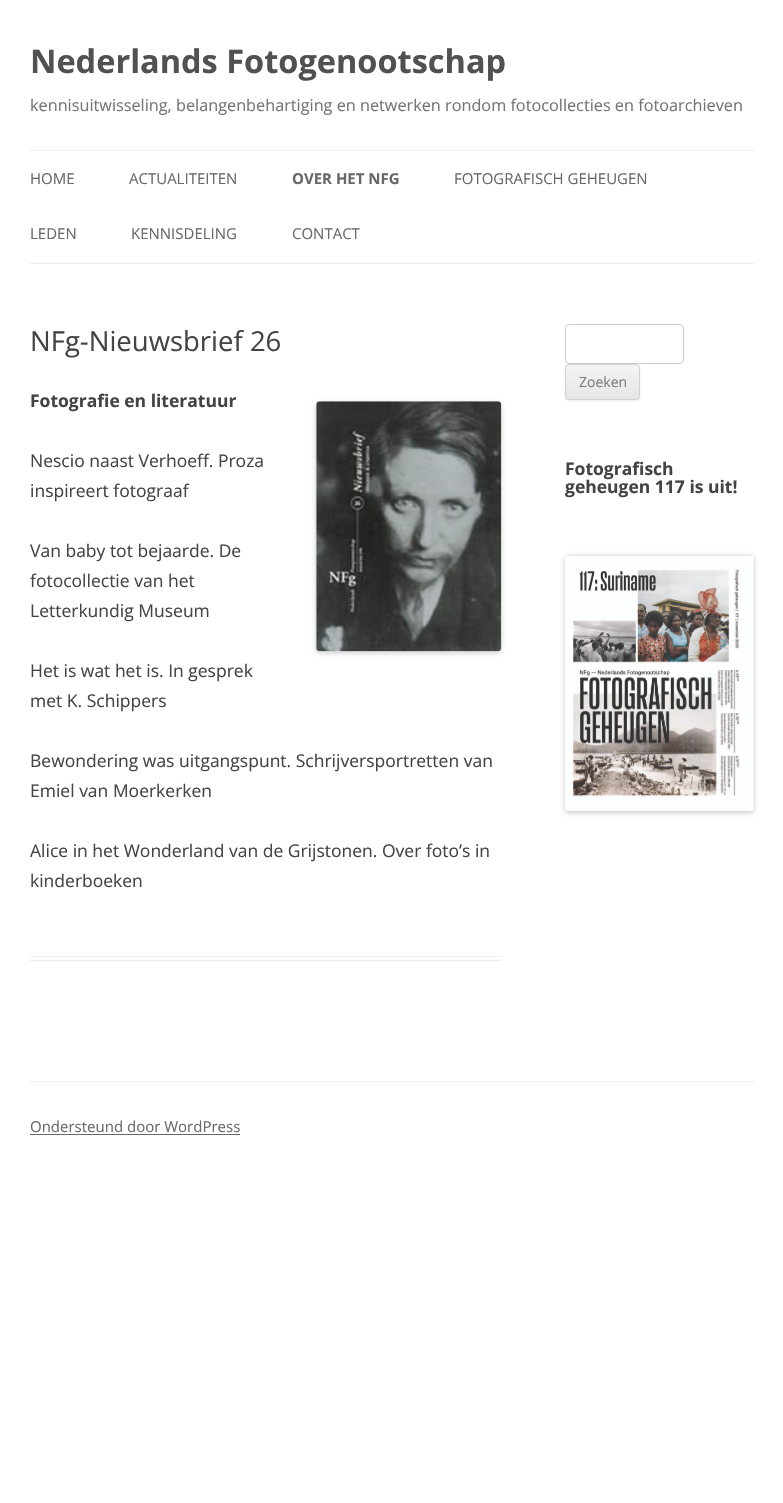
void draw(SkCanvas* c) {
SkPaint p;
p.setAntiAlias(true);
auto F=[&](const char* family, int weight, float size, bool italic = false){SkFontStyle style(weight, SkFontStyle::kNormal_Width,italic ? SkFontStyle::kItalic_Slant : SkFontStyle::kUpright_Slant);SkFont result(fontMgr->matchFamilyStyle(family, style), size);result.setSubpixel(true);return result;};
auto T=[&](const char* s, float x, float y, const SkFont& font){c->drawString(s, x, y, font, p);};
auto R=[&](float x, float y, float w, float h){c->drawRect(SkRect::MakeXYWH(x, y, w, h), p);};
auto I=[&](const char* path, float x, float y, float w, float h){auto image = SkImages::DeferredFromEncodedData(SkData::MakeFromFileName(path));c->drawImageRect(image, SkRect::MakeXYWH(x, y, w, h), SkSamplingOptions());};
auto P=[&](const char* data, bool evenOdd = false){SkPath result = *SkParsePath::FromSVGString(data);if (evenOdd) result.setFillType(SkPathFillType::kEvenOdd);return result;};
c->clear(0xffffffff);
auto f1 = F("Open Sans",700,32.5);
p.setColor(0xff515151);
T("Nederlands Fotogenootschap",30,73,f1);
auto f2 = F("Open Sans",400,16.25);
p.setColor(0xff757575);
T("kennisuitwisseling, belangenbehartiging en netwerken rondom fotocollecties en fotoarchieven",30,111,f2);
p.setColor(0xffededed);
R(30,150,724,1);
R(30,263,724,1);
auto f3 = F("Open Sans",400,15);
p.setColor(0xff686868);
T("HOME",30,184,f3);
T("ACTUALITEITEN",129,184,f3);
auto f4 = F("Open Sans",700,15);
T("OVER HET NFG",292,184,f4);
T("FOTOGRAFISCH GEHEUGEN",454,184,f3);
T("LEDEN",30,239,f3);
T("KENNISDELING",131,239,f3);
T("CONTACT",292,239,f3);
p.setColor(0xffededed);
R(30,956,471,1);
R(30,960,471,1);
auto f5 = F("Open Sans",400,27.5);
p.setColor(0xff444444);
T("NFg-Nieuwsbrief 26",30,351,f5);
auto f6 = F("Open Sans",700,17.5);
T("Fotografie en literatuur",30,407,f6);
p.setColor(0x33000000);
p.setMaskFilter(SkMaskFilter::MakeBlur(kNormal_SkBlurStyle, 2.5));
c->drawRoundRect(SkRect::MakeXYWH(316,403,185,250),4,4,p);
p.setMaskFilter(nullptr);
I("1.png",316,401,186,251);
auto f7 = F("Open Sans",400,17.5);
p.setColor(0xff444444);
T("Nescio naast Verhoeff. Proza",30,467,f7);
T("inspireert fotograaf",30,497,f7);
T("Van baby tot bejaarde. De",30,557,f7);
T("fotocollectie van het",30,587,f7);
T("Letterkundig Museum",30,617,f7);
T("Het is wat het is. In gesprek",30,677,f7);
T("met K. Schippers",30,707,f7);
T("Bewondering was uitgangspunt. Schrijversportretten van",30,767,f7);
T("Emiel van Moerkerken",30,797,f7);
T("Alice in het Wonderland van de Grijstonen. Over foto’s in",30,857,f7);
T("kinderboeken",30,887,f7);
p.setStroke(true);
p.setStrokeWidth(1);
p.setColor(0xffcccccc);
c->drawRoundRect(SkRect::MakeXYWH(565.5,324.5,118,39),3.5,3.5,p);
p.setStroke(false);
p.setColor(0x1a404040);
p.setMaskFilter(SkMaskFilter::MakeBlur(kNormal_SkBlurStyle, 1));
c->drawRoundRect(SkRect::MakeXYWH(565,365,75,36),4,4,p);
p.setMaskFilter(nullptr);
c->save();
c->clipPath(P("M569 364h67c2 0 4 2 4 4v28c0 2-2 4-4 4h-67c-2 0-4-2-4-4v-28c0-2 2-4 4-4z"),true);
{
const SkColor colors[] = {0xfff4f4f4,0xffe6e6e6};
const float stops[] = {0,1};
const SkPoint ends[] = {{603,365}, {603,399}};
p.setShader(SkGradientShader::MakeLinear(ends, colors, stops, 2, SkTileMode::kClamp));
p.setAlpha(255);
}
R(565,365,75,34);
c->restore();
p.setStroke(true);
p.setShader(nullptr);
p.setColor(0xffd2d2d2);
c->drawRoundRect(SkRect::MakeXYWH(565.5,364.5,74,35),3.5,3.5,p);
auto f8 = F("Open Sans",400,14);
p.setStroke(false);
p.setColor(0xff7c7c7c);
T("Zoeken",579,387,f8);
p.setColor(0xff444444);
T("Fotografisch",565,475,f6);
T("geheugen 117 is uit!",565,493,f6);
p.setColor(0x33000000);
p.setMaskFilter(SkMaskFilter::MakeBlur(kNormal_SkBlurStyle, 2.5));
c->drawRoundRect(SkRect::MakeXYWH(565,556,189,257),4,4,p);
p.setMaskFilter(nullptr);
I("2.png",565,556,189,255);
p.setColor(0xffededed);
R(30,1081,724,1);
p.setColor(0xff686868);
T("Ondersteund door WordPress",30,1132,f3);
R(30,1134,210,1);
}
